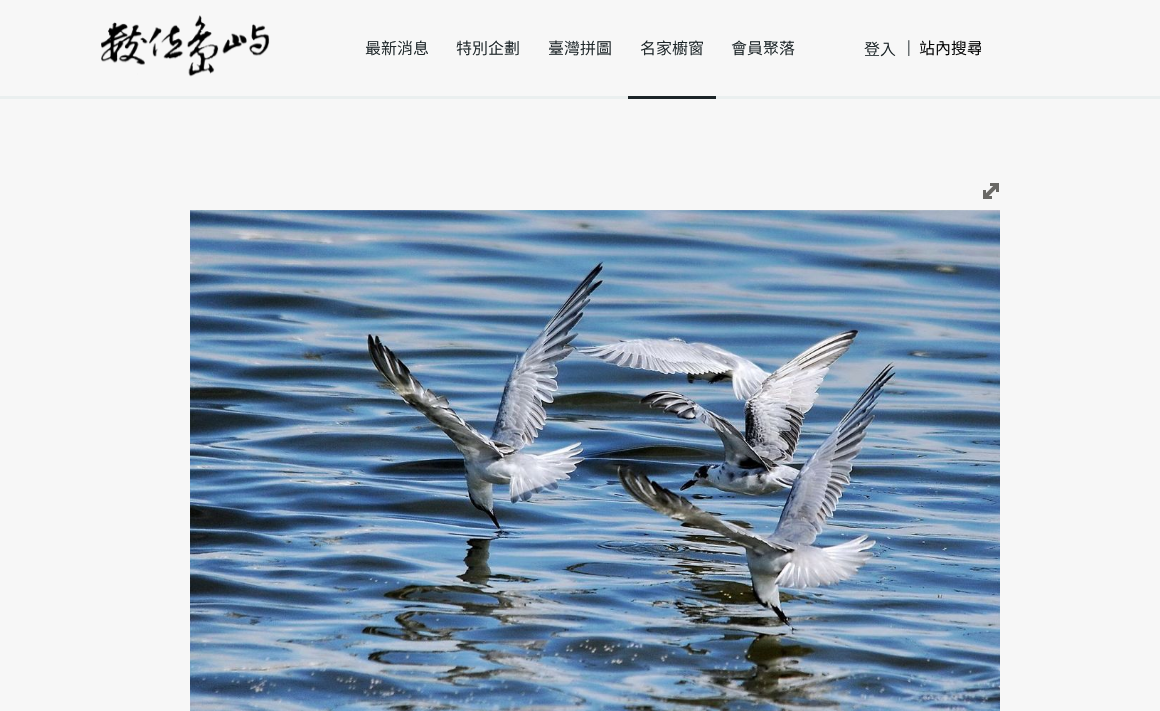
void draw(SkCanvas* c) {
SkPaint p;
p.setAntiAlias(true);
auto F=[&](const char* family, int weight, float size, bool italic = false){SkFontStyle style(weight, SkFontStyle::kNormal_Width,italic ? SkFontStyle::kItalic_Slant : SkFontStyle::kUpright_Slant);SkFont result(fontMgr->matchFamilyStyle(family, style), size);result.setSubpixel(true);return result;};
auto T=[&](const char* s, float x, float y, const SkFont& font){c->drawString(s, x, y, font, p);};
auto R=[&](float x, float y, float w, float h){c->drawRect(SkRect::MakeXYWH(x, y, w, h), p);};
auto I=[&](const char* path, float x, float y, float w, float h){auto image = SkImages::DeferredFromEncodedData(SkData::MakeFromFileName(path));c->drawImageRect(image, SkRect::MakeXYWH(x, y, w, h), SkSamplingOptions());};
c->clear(0xfff7f7f7);
p.setColor(0xffeaefef);
R(0,96,1160,3);
I("1.png",101,15,169,62);
auto f1 = F("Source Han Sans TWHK",300,16);
p.setColor(0xff1c2528);
T("最新消息",365,54,f1);
T("特別企劃",456,54,f1);
T("臺灣拼圖",548,54,f1);
R(628,96,88,3);
T("名家櫥窗",640,54,f1);
T("會員聚落",731,54,f1);
T("登入",864,55,f1);
auto f2 = F("Source Han Sans TWHK",300,14);
T("|",907,52,f2);
c->save();
c->clipRect(SkRect::MakeXYWH(919,36,62,24));
p.setColor(0xff000000);
T("站內搜尋",919,54,f1);
c->restore();
I("2.png",983,183,16,16);
I("3.png",190,210,810,501);
}
